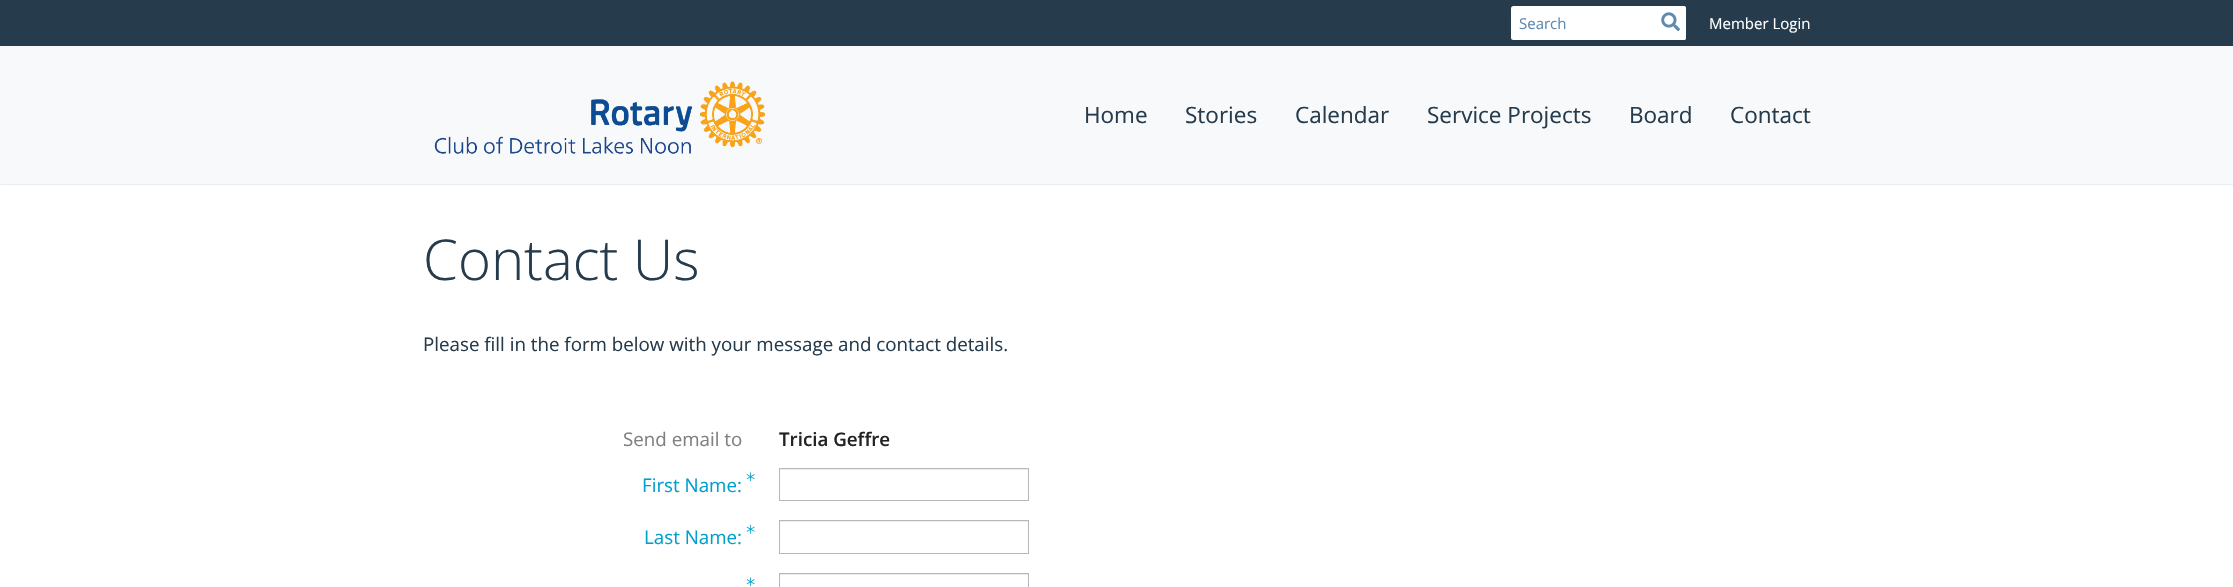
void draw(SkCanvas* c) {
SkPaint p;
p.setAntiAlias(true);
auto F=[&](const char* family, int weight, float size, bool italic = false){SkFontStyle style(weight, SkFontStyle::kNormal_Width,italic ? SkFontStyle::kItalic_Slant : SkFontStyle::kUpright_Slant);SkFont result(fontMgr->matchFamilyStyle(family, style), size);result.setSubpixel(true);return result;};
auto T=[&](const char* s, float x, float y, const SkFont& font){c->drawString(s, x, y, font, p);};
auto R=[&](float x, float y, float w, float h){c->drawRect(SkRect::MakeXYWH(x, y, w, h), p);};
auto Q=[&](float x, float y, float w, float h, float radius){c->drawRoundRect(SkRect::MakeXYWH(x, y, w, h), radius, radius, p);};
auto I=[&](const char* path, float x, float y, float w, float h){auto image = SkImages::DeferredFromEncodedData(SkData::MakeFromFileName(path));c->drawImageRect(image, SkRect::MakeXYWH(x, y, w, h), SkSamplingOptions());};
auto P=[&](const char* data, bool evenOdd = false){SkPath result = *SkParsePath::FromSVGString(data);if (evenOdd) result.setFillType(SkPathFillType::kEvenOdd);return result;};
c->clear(0xffffffff);
p.setColor(0xff263b4c);
R(0,0,2233,46);
p.setColor(0xffffffff);
Q(1511,6,175,34,2.5);
auto f1 = F("Open Sans",400,15);
p.setColor(0xff5d8aae);
T("Search",1519,29,f1);
p.setColor(0xffffffff);
Q(1655,6,31,34,2.5);
I("1.png",1661,12,19,19);
T("Member Login",1709,29,f1);
p.setColor(0xfff8f9fa);
R(0,46,2233,139);
p.setColor(0xffe9ecef);
c->drawPath(P("M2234 185h-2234l1-1h2231z"),p);
I("2.png",434,81,331,73);
auto f2 = F("Open Sans",400,22.5);
p.setColor(0xff263b4c);
T("Home",1084,123,f2);
T("Stories",1185,123,f2);
T("Calendar",1295,123,f2);
T("Service Projects",1427,123,f2);
T("Board",1629,123,f2);
T("Contact",1730,123,f2);
auto f3 = F("Open Sans",300,56.25);
T("Contact Us",423,280,f3);
auto f4 = F("Open Sans",400,18.75);
T("Please fill in the form below with your message and contact details.",423,351,f4);
p.setColor(0xff808080);
T("Send email to",623,446,f4);
auto f5 = F("Open Sans",600,18.75);
p.setColor(0xff222222);
T("Tricia Geffre",779,446,f5);
I("3.png",746,472,9,10);
p.setColor(0xff019fcb);
T("First Name:",642,492,f4);
p.setColor(0xffececec);
R(780,469,248,1);
p.setStroke(true);
p.setStrokeWidth(1);
p.setColor(0xffb7b7b7);
c->drawRect(SkRect::MakeXYWH(779.5,468.5,249,32),p);
I("4.png",746,524,9,10);
p.setStroke(false);
p.setColor(0xff019fcb);
T("Last Name:",644,544,f4);
p.setColor(0xffececec);
R(780,521,248,1);
p.setStroke(true);
p.setColor(0xffb7b7b7);
c->drawRect(SkRect::MakeXYWH(779.5,520.5,249,33),p);
I("3.png",746,577,9,10);
p.setStroke(false);
p.setColor(0xffececec);
R(780,574,248,1);
p.setStroke(true);
p.setColor(0xffb7b7b7);
c->drawRect(SkRect::MakeXYWH(779.5,573.5,249,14),p);
}
